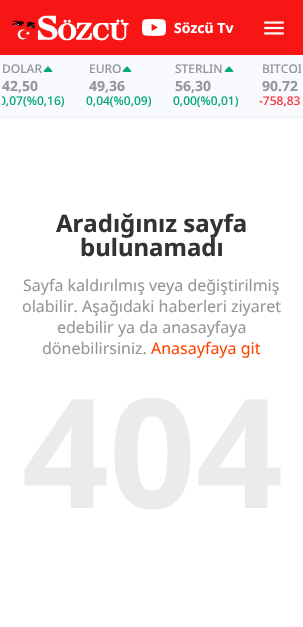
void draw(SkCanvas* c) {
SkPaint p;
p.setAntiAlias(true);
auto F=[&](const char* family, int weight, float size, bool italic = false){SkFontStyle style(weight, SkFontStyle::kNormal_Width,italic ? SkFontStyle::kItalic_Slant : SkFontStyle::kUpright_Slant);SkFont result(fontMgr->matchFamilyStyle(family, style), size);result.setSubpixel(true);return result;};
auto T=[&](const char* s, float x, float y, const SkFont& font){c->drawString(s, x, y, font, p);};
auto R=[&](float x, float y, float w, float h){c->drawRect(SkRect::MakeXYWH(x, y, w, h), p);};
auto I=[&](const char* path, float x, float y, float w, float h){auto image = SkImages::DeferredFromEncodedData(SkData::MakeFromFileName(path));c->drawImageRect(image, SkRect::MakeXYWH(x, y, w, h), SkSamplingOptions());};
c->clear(0xffffffff);
p.setColor(0xfff71515);
R(0,0,303,55);
I("1.png",12,15,117,26);
I("2.png",142,19,24,17);
auto f1 = F("Noto Sans",700,14);
p.setColor(0xffffffff);
T("Sözcü Tv",174,33,f1);
I("3.png",264,21,20,14);
p.setColor(0xfff8fafe);
R(0,55,303,62);
p.setColor(0xffeff0f5);
R(0,117,303,1);
auto f2 = F("Noto Sans",500,12);
p.setColor(0xff959698);
T("DOLAR",2,73,f2);
I("4.png",43,66,10,6);
T("42,50",2,91,f1);
c->save();
c->clipRect(SkRect::MakeXYWH(2,63,299,46));
p.setColor(0xff07a973);
T("0,07",-1,105,f2);
c->restore();
T("(%0,16)",23,105,f2);
p.setColor(0xff959698);
T("EURO",89,73,f2);
I("4.png",122,66,10,6);
T("49,36",89,91,f1);
p.setColor(0xff07a973);
T("0,04(%0,09)",86,105,f2);
p.setColor(0xff959698);
T("STERLIN",175,73,f2);
I("4.png",224,66,10,6);
T("56,30",175,91,f1);
p.setColor(0xff07a973);
T("0,00(%0,01)",173,105,f2);
c->save();
c->clipRect(SkRect::MakeXYWH(2,63,299,46));
p.setColor(0xff959698);
T("BITCOI",262,73,f2);
c->restore();
T("90.72",262,91,f1);
p.setColor(0xfffe353e);
T("-758,83",259,105,f2);
auto f3 = F("Noto Sans",700,24);
p.setColor(0xff333333);
T("Aradığınız sayfa",56,232,f3);
T("bulunamadı",80,256,f3);
auto f4 = F("Noto Sans",400,16);
p.setColor(0xff959698);
T("Sayfa kaldırılmış veya değiştirilmiş",23,291,f4);
T("olabilir. Aşağıdaki haberleri ziyaret",22,312,f4);
T("edebilir ya da anasayfaya",57,333,f4);
T("dönebilirsiniz.",42,354,f4);
p.setColor(0xffff4400);
T("Anasayfaya git",151,354,f4);
auto f5 = F("Noto Sans",700,152);
p.setColor(0xffebebeb);
T("404",22,508,f5);
}
